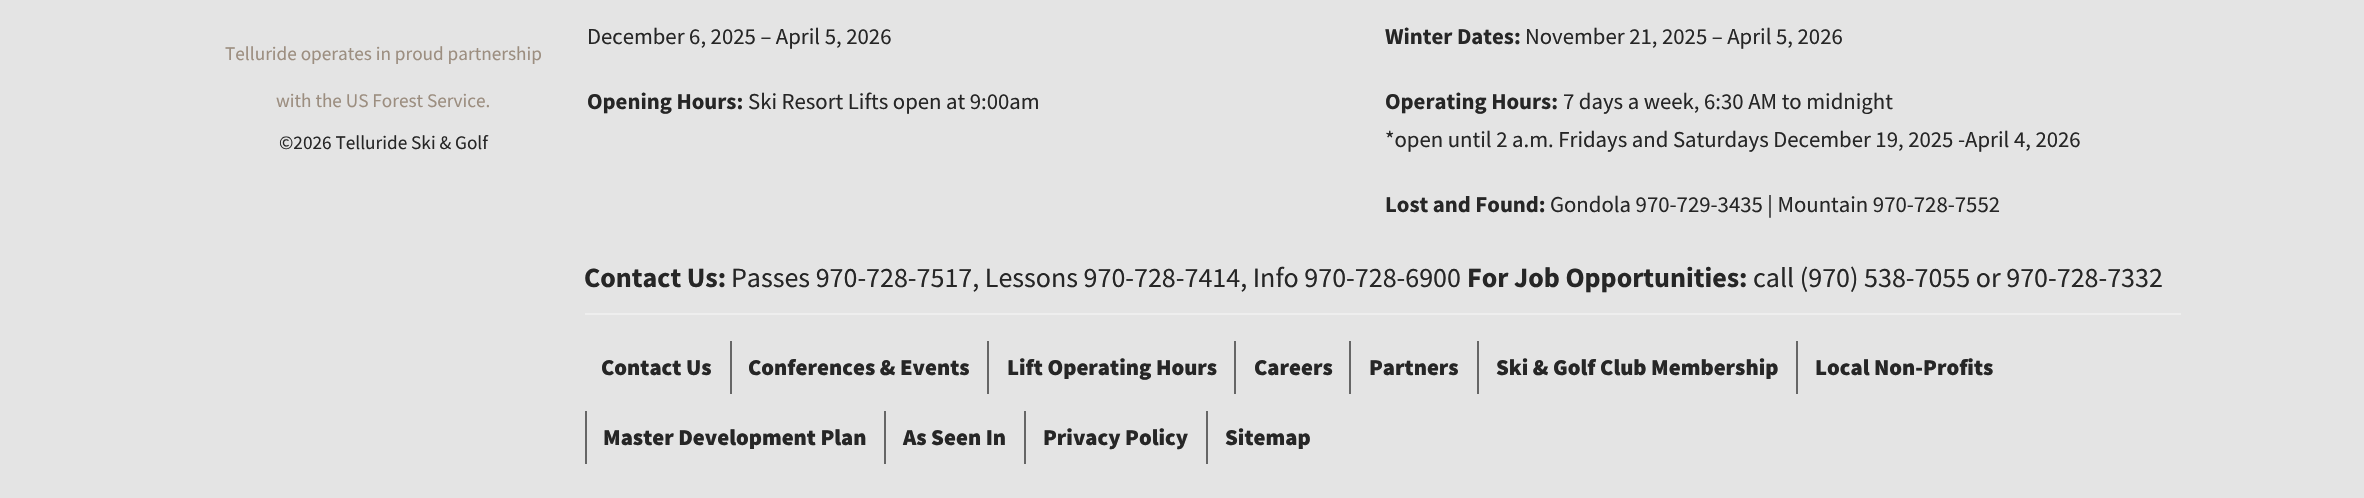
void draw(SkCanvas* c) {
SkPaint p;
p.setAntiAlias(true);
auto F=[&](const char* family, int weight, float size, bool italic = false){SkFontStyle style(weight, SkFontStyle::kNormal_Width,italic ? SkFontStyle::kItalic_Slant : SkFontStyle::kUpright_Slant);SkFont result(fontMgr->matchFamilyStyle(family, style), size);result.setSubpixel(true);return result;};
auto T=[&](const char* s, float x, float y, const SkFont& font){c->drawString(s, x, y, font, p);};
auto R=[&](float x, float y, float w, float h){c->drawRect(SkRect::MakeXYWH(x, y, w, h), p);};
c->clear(0xffe4e4e4);
auto f1 = F("Source Sans Pro",400,19.25);
p.setColor(0xff9c8e80);
T("Telluride operates in proud partnership",225,60,f1);
T("with the US Forest Service.",276,107,f1);
p.setColor(0xff262626);
T("©2026 Telluride Ski & Golf",279,149,f1);
auto f2 = F("Source Sans Pro",400,22.75);
T("December 6, 2025 – April 5, 2026",587,44,f2);
auto f3 = F("Source Sans Pro",700,22.75);
T("Opening Hours:",587,109,f3);
T("Ski Resort Lifts open at 9:00am",748,109,f2);
T("Winter Dates:",1385,44,f3);
T("November 21, 2025 – April 5, 2026",1525,44,f2);
T("Operating Hours:",1385,109,f3);
T("7 days a week, 6:30 AM to midnight",1563,109,f2);
T("*open until 2 a.m. Fridays and Saturdays December 19, 2025 -April 4, 2026",1385,147,f2);
T("Lost and Found:",1385,212,f3);
T("Gondola 970-729-3435 | Mountain 970-728-7552",1550,212,f2);
p.setColor(0xffeeeeee);
R(585,313,1596,2);
auto f4 = F("Source Sans Pro",700,28);
p.setColor(0xff262626);
T("Contact Us:",584,287,f4);
auto f5 = F("Source Sans Pro",400,28);
T("Passes 970-728-7517, Lessons 970-728-7414, Info 970-728-6900",731,287,f5);
T("For Job Opportunities:",1467,287,f4);
T("call (970) 538-7055 or 970-728-7332",1753,287,f5);
auto f6 = F("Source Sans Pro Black",900,22.75);
T("Contact Us",601,375,f6);
p.setColor(0xff666666);
R(730,341,2,53);
p.setColor(0xff262626);
T("Conferences & Events",748,375,f6);
p.setColor(0xff666666);
R(987,341,2,53);
p.setColor(0xff262626);
T("Lift Operating Hours",1007,375,f6);
p.setColor(0xff666666);
R(1234,341,2,53);
p.setColor(0xff262626);
T("Careers",1254,375,f6);
p.setColor(0xff666666);
R(1349,341,2,53);
p.setColor(0xff262626);
T("Partners",1369,375,f6);
p.setColor(0xff666666);
R(1477,341,2,53);
p.setColor(0xff262626);
T("Ski & Golf Club Membership",1496,375,f6);
p.setColor(0xff666666);
R(1796,341,2,53);
p.setColor(0xff262626);
T("Local Non-Profits",1815,375,f6);
p.setColor(0xff666666);
R(585,411,2,53);
p.setColor(0xff262626);
T("Master Development Plan",603,445,f6);
p.setColor(0xff666666);
R(884,411,2,53);
p.setColor(0xff262626);
T("As Seen In",903,445,f6);
p.setColor(0xff666666);
R(1024,411,2,53);
p.setColor(0xff262626);
T("Privacy Policy",1043,445,f6);
p.setColor(0xff666666);
R(1206,411,2,53);
p.setColor(0xff262626);
T("Sitemap",1225,445,f6);
}
